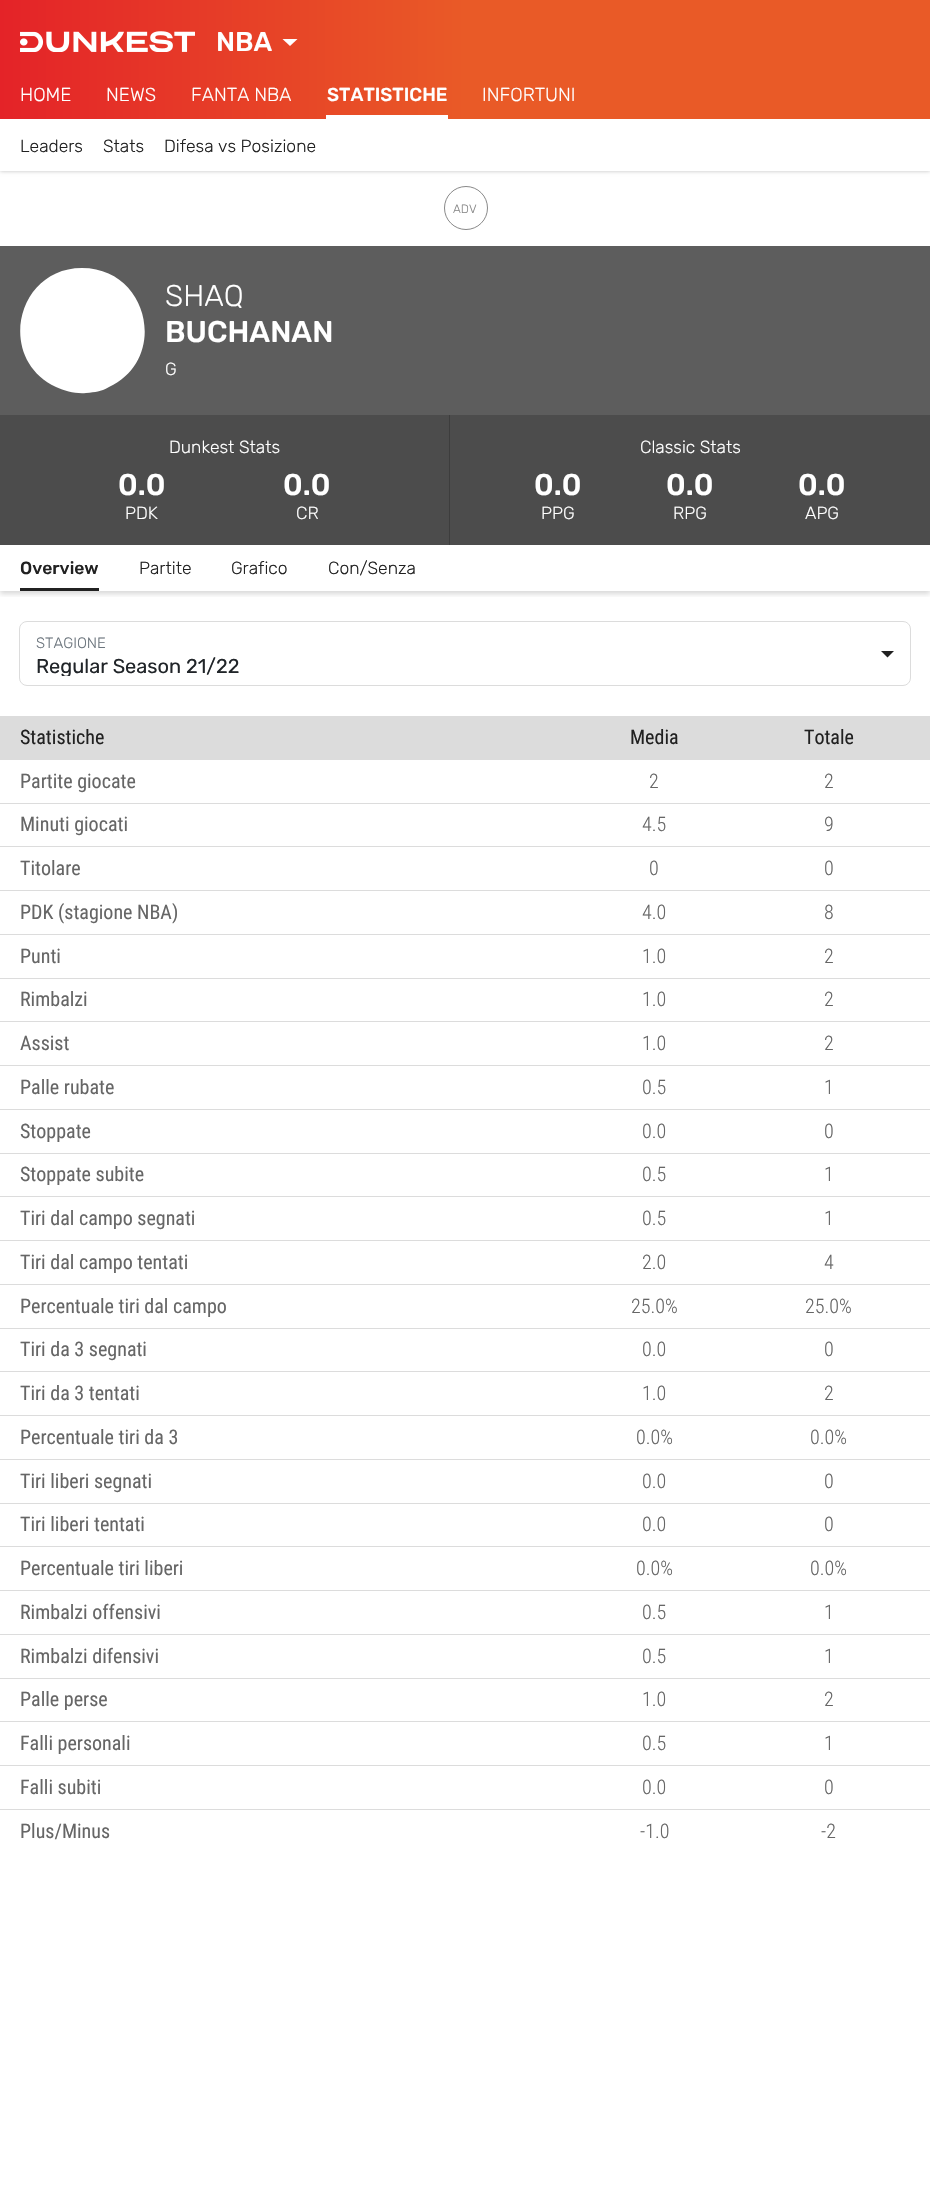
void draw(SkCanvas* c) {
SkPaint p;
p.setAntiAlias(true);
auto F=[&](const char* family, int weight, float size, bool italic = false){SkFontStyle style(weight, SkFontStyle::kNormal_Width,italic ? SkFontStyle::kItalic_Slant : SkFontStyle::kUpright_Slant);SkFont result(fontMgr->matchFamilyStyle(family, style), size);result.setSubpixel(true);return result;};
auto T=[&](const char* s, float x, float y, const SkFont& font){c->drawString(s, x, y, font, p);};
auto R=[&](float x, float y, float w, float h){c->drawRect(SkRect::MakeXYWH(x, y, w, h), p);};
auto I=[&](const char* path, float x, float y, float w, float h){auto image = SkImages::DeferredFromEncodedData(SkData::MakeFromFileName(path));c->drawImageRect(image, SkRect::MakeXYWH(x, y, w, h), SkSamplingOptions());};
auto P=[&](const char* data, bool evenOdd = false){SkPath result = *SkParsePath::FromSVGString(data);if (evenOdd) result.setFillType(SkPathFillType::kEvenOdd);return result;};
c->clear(0xffffffff);
p.setColor(0x40000000);
p.setMaskFilter(SkMaskFilter::MakeBlur(kNormal_SkBlurStyle, 2));
c->drawRect(SkRect::MakeXYWH(0,0,930,171),p);
p.setMaskFilter(nullptr);
{
const SkColor colors[] = {0xffe42328,0xffe95a27};
const float stops[] = {0,.5};
const SkPoint ends[] = {{0,86}, {930,86}};
p.setShader(SkGradientShader::MakeLinear(ends, colors, stops, 2, SkTileMode::kClamp));
p.setAlpha(255);
}
R(0,0,930,119);
I("1.png",20,31,175,21);
auto f1 = F("Rubik",500,27);
p.setShader(nullptr);
p.setColor(0xffffffff);
T("NBA",216,51,f1);
c->drawPath(P("M282.5 39h15l-7.5 7z"),p);
auto f2 = F("Rubik",300,18.75);
T("HOME",20,101,f2);
T("NEWS",106,101,f2);
T("FANTA NBA",191,101,f2);
R(326,115,122,4);
auto f3 = F("Rubik",500,18.75);
T("STATISTICHE",327,101,f3);
T("INFORTUNI",482,101,f2);
R(0,119,930,52);
auto f4 = F("Rubik",300,17.5);
p.setColor(0xff212121);
T("Leaders",20,152,f4);
T("Stats",103,152,f4);
T("Difesa vs Posizione",164,152,f4);
p.setStroke(true);
p.setStrokeWidth(1);
p.setColor(0xff888888);
c->drawCircle(466,208,21.5,p);
auto f5 = F("Rubik",300,12);
p.setStroke(false);
T("ADV",453,213,f5);
p.setColor(0xff5d5d5d);
R(0,246,930,169);
p.setColor(0xffffffff);
c->drawPath(P("M82 268c67 0 87 91 27 119c-9 5-13 5-23 6c-10 1-21-2-30-6c-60-28-40-119 26-119z"),p);
auto f6 = F("Rubik",300,30);
T("SHAQ",165,306,f6);
auto f7 = F("Rubik",500,30);
T("BUCHANAN",165,342,f7);
T("G",165,375,f4);
p.setColor(0xff4c4c4c);
R(0,415,449,130);
p.setColor(0xffffffff);
T("Dunkest Stats",169,453,f4);
T("0.0",118,495,f7);
T("PDK",125,519,f4);
T("0.0",283,495,f7);
T("CR",296,519,f4);
p.setColor(0xff4c4c4c);
R(450,415,480,130);
p.setColor(0xff3d3d3d);
R(449,415,1,130);
p.setColor(0xffffffff);
T("Classic Stats",640,453,f4);
T("0.0",534,495,f7);
T("PPG",541,519,f4);
T("0.0",666,495,f7);
T("RPG",673,519,f4);
T("0.0",798,495,f7);
T("APG",805,519,f4);
c->save();
c->clipRect(SkRect::MakeXYWH(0,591,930,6));
p.setColor(0x26000000);
p.setMaskFilter(SkMaskFilter::MakeBlur(kNormal_SkBlurStyle, 2.5));
c->drawRect(SkRect::MakeXYWH(0,548,930,46),p);
p.setMaskFilter(nullptr);
c->restore();
p.setColor(0xff212121);
R(20,588,79,3);
auto f8 = F("Rubik",500,17.5);
T("Overview",20,574,f8);
T("Partite",139,574,f4);
T("Grafico",231,574,f4);
T("Con/Senza",328,574,f4);
p.setStroke(true);
p.setColor(0xffdcdcdc);
c->drawRoundRect(SkRect::MakeXYWH(19.5,621.5,891,64),7.5,7.5,p);
auto f9 = F("Rubik",300,15);
p.setStroke(false);
p.setColor(0xff6c757d);
T("STAGIONE",36,648,f9);
p.setColor(0xff212121);
c->drawPath(P("M881 651h13l-6.5 6.5z"),p);
c->save();
c->clipRect(SkRect::MakeXYWH(36,656,840,20));
auto f10 = F("Rubik",400,20);
p.setColor(0xff212529);
T("Regular Season 21/22",36,673,f10);
c->restore();
p.setColor(0xffdcdcdc);
R(0,716,930,44);
auto f11 = F("Roboto Condensed",400,20);
p.setColor(0xff212121);
T("Statistiche",20,744,f11);
T("Media",630,744,f11);
T("Totale",804,744,f11);
p.setColor(0xff666666);
T("Partite giocate",20,788,f11);
auto f12 = F("Roboto Condensed",300,20);
T("2",649,788,f12);
T("2",824,788,f12);
T("Minuti giocati",20,831,f11);
T("4.5",642,831,f12);
p.setColor(0xffdcdcdc);
R(0,803,930,1);
p.setColor(0xff666666);
T("9",824,831,f12);
T("Titolare",20,875,f11);
T("0",649,875,f12);
p.setColor(0xffdcdcdc);
R(0,846,930,1);
p.setColor(0xff666666);
T("0",824,875,f12);
T("PDK (stagione NBA)",20,919,f11);
T("4.0",642,919,f12);
p.setColor(0xffdcdcdc);
R(0,890,930,1);
p.setColor(0xff666666);
T("8",824,919,f12);
T("Punti",20,963,f11);
T("1.0",642,963,f12);
p.setColor(0xffdcdcdc);
R(0,934,930,1);
p.setColor(0xff666666);
T("2",824,963,f12);
T("Rimbalzi",20,1006,f11);
T("1.0",642,1006,f12);
p.setColor(0xffdcdcdc);
R(0,978,930,1);
p.setColor(0xff666666);
T("2",824,1006,f12);
T("Assist",20,1050,f11);
T("1.0",642,1050,f12);
p.setColor(0xffdcdcdc);
R(0,1021,930,1);
p.setColor(0xff666666);
T("2",824,1050,f12);
T("Palle rubate",20,1094,f11);
T("0.5",642,1094,f12);
p.setColor(0xffdcdcdc);
R(0,1065,930,1);
p.setColor(0xff666666);
T("1",824,1094,f12);
T("Stoppate",20,1138,f11);
T("0.0",642,1138,f12);
p.setColor(0xffdcdcdc);
R(0,1109,930,1);
p.setColor(0xff666666);
T("0",824,1138,f12);
T("Stoppate subite",20,1181,f11);
T("0.5",642,1181,f12);
p.setColor(0xffdcdcdc);
R(0,1153,930,1);
p.setColor(0xff666666);
T("1",824,1181,f12);
T("Tiri dal campo segnati",20,1225,f11);
T("0.5",642,1225,f12);
p.setColor(0xffdcdcdc);
R(0,1196,930,1);
p.setColor(0xff666666);
T("1",824,1225,f12);
T("Tiri dal campo tentati",20,1269,f11);
T("2.0",642,1269,f12);
p.setColor(0xffdcdcdc);
R(0,1240,930,1);
p.setColor(0xff666666);
T("4",824,1269,f12);
T("Percentuale tiri dal campo",20,1313,f11);
T("25.0%",631,1313,f12);
p.setColor(0xffdcdcdc);
R(0,1284,930,1);
p.setColor(0xff666666);
T("25.0%",805,1313,f12);
T("Tiri da 3 segnati",20,1356,f11);
T("0.0",642,1356,f12);
p.setColor(0xffdcdcdc);
R(0,1328,930,1);
p.setColor(0xff666666);
T("0",824,1356,f12);
T("Tiri da 3 tentati",20,1400,f11);
T("1.0",642,1400,f12);
p.setColor(0xffdcdcdc);
R(0,1371,930,1);
p.setColor(0xff666666);
T("2",824,1400,f12);
T("Percentuale tiri da 3",20,1444,f11);
T("0.0%",636,1444,f12);
p.setColor(0xffdcdcdc);
R(0,1415,930,1);
p.setColor(0xff666666);
T("0.0%",810,1444,f12);
T("Tiri liberi segnati",20,1488,f11);
T("0.0",642,1488,f12);
p.setColor(0xffdcdcdc);
R(0,1459,930,1);
p.setColor(0xff666666);
T("0",824,1488,f12);
T("Tiri liberi tentati",20,1531,f11);
T("0.0",642,1531,f12);
p.setColor(0xffdcdcdc);
R(0,1503,930,1);
p.setColor(0xff666666);
T("0",824,1531,f12);
T("Percentuale tiri liberi",20,1575,f11);
T("0.0%",636,1575,f12);
p.setColor(0xffdcdcdc);
R(0,1546,930,1);
p.setColor(0xff666666);
T("0.0%",810,1575,f12);
T("Rimbalzi offensivi",20,1619,f11);
T("0.5",642,1619,f12);
p.setColor(0xffdcdcdc);
R(0,1590,930,1);
p.setColor(0xff666666);
T("1",824,1619,f12);
T("Rimbalzi difensivi",20,1663,f11);
T("0.5",642,1663,f12);
p.setColor(0xffdcdcdc);
R(0,1634,930,1);
p.setColor(0xff666666);
T("1",824,1663,f12);
T("Palle perse",20,1706,f11);
T("1.0",642,1706,f12);
p.setColor(0xffdcdcdc);
R(0,1678,930,1);
p.setColor(0xff666666);
T("2",824,1706,f12);
T("Falli personali",20,1750,f11);
T("0.5",642,1750,f12);
p.setColor(0xffdcdcdc);
R(0,1721,930,1);
p.setColor(0xff666666);
T("1",824,1750,f12);
T("Falli subiti",20,1794,f11);
T("0.0",642,1794,f12);
p.setColor(0xffdcdcdc);
R(0,1765,930,1);
p.setColor(0xff666666);
T("0",824,1794,f12);
T("Plus/Minus",20,1838,f11);
T("-1.0",640,1838,f12);
p.setColor(0xffdcdcdc);
R(0,1809,930,1);
p.setColor(0xff666666);
T("-2",821,1838,f12);
}
